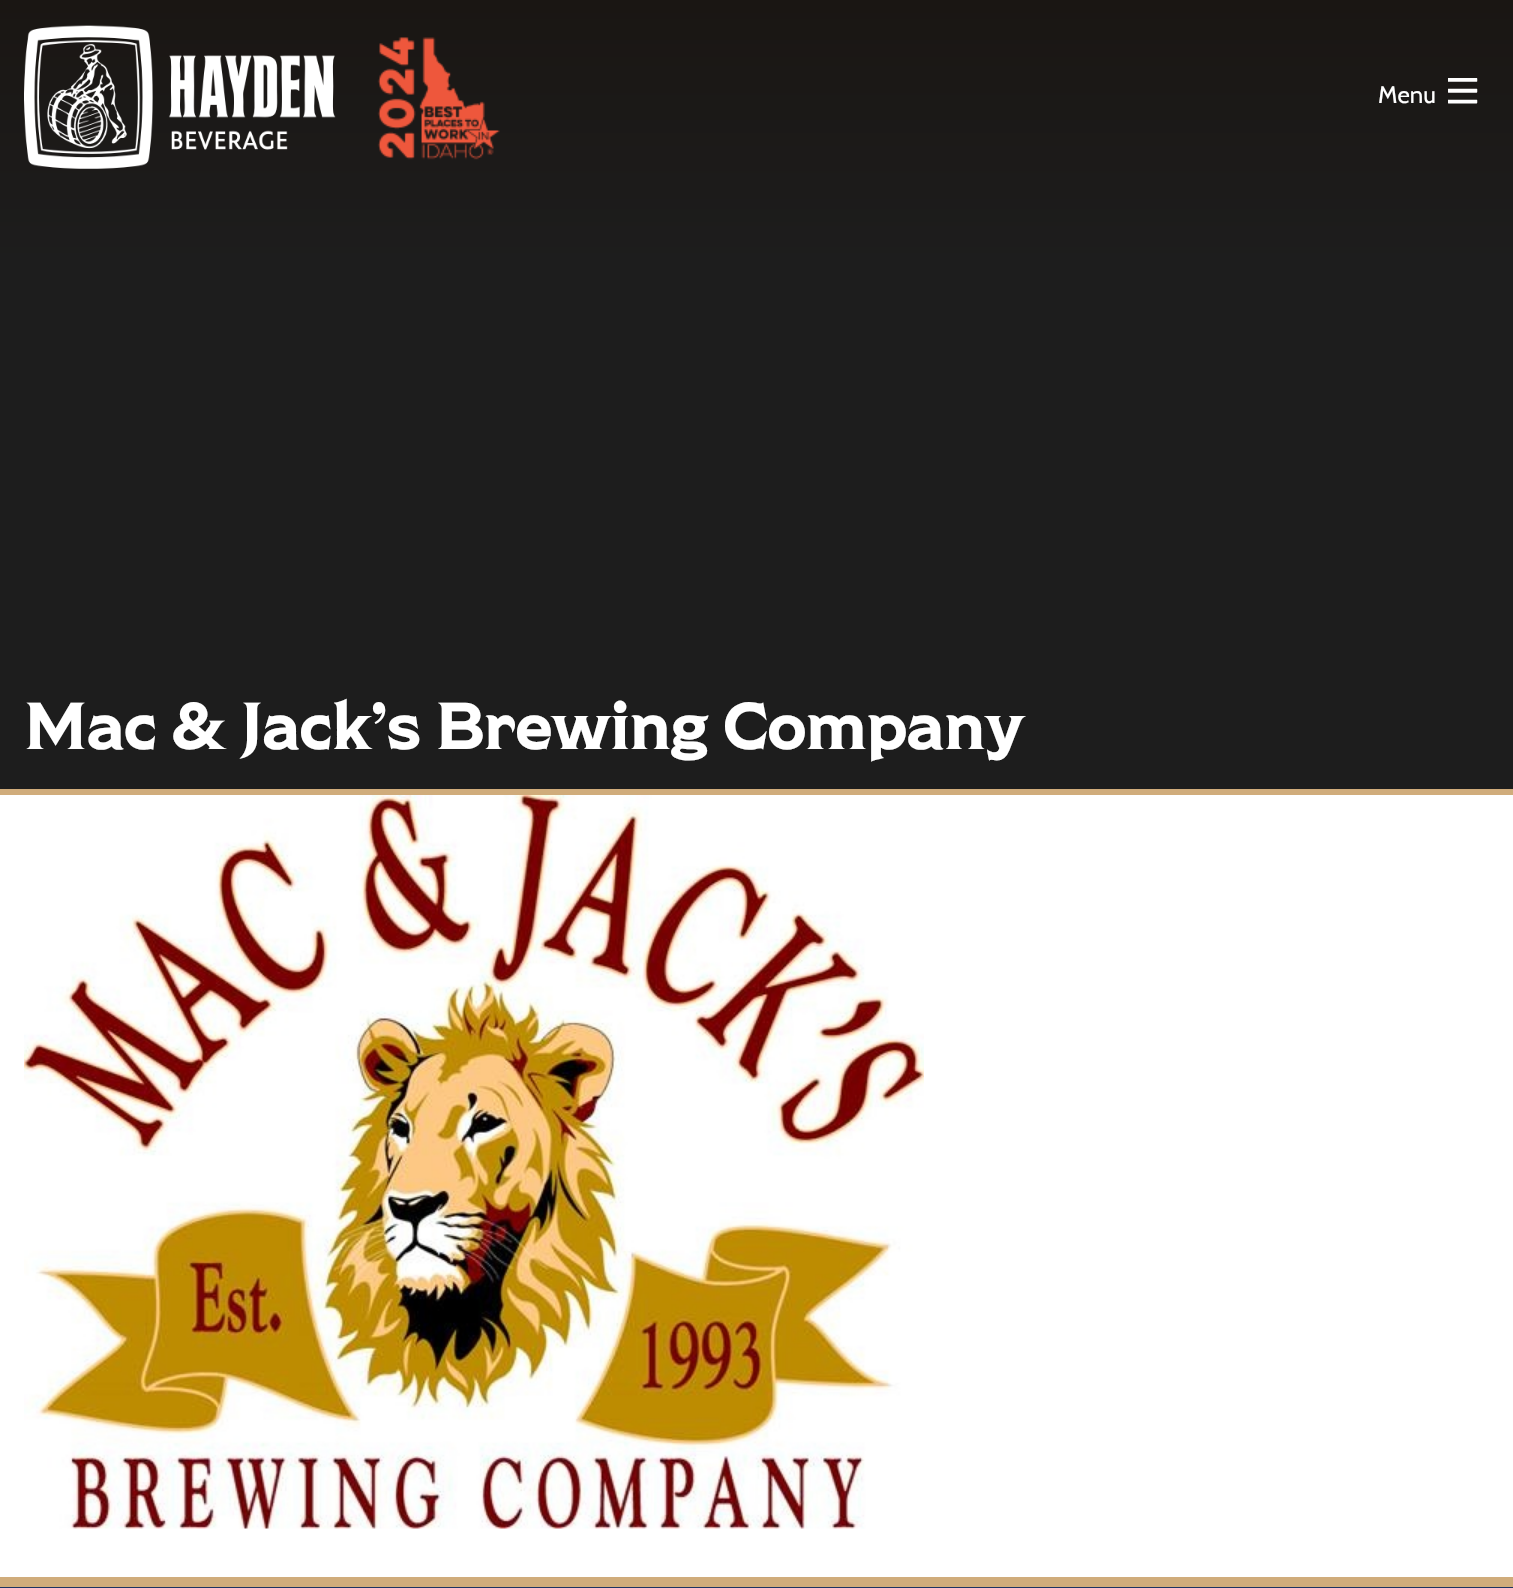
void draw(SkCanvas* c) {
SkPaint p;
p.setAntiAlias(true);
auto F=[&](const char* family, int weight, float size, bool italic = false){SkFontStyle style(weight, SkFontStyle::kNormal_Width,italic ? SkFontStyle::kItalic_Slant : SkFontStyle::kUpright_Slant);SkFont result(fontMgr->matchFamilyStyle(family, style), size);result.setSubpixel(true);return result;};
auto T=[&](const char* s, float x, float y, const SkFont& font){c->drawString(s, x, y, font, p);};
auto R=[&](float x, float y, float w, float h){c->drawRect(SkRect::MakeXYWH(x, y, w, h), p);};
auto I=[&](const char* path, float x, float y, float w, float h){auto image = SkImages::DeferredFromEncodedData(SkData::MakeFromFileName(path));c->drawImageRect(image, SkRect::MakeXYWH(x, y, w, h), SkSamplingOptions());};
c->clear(0xffffffff);
{
const SkColor colors[] = {0xff1d1d1d,0xff1a1613};
const float stops[] = {0,1};
const SkPoint ends[] = {{757,266}, {757,0}};
p.setShader(SkGradientShader::MakeLinear(ends, colors, stops, 2, SkTileMode::kClamp));
p.setAlpha(255);
}
R(0,0,1513,266);
I("1.png",24,25,312,144);
I("2.png",377,37,123,123);
auto f1 = F("Cabin",400,24);
p.setShader(nullptr);
p.setColor(0xffffffff);
T("Menu",1378,103,f1);
I("3.png",1448,78,30,26);
p.setColor(0xff1d1d1d);
R(0,266,1513,523);
p.setColor(0xffd0ac7b);
R(0,789,1513,6);
auto f2 = F("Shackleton",400,66);
p.setColor(0xffffffff);
T("Mac & Jack’s Brewing Company",24,749,f2);
I("4.png",24,795,900,734);
p.setColor(0xff1d3362);
R(0,1587,1513,1);
p.setColor(0xffd0ac7b);
R(0,1577,1513,10);
}
